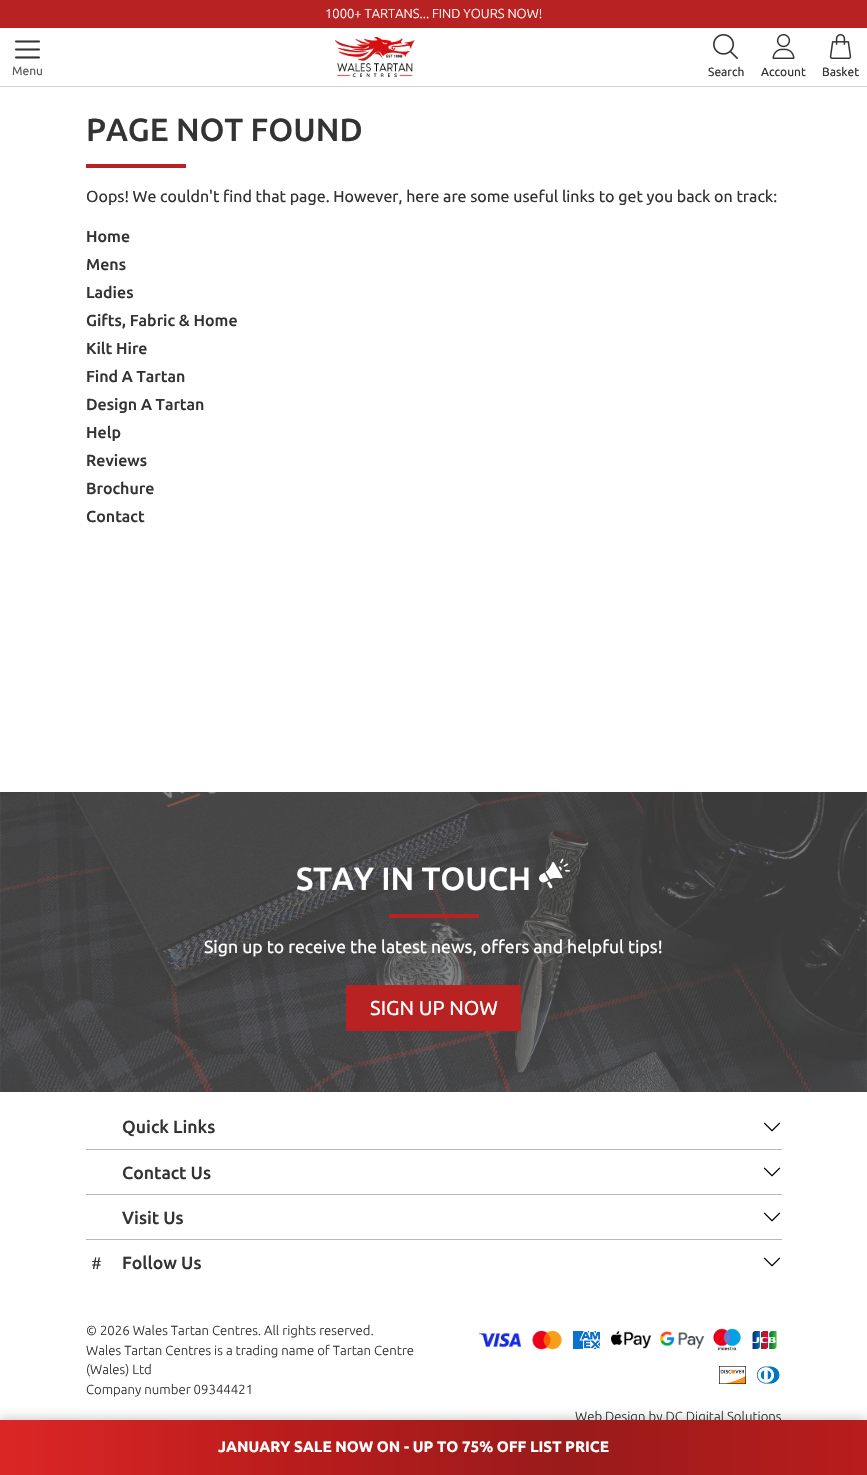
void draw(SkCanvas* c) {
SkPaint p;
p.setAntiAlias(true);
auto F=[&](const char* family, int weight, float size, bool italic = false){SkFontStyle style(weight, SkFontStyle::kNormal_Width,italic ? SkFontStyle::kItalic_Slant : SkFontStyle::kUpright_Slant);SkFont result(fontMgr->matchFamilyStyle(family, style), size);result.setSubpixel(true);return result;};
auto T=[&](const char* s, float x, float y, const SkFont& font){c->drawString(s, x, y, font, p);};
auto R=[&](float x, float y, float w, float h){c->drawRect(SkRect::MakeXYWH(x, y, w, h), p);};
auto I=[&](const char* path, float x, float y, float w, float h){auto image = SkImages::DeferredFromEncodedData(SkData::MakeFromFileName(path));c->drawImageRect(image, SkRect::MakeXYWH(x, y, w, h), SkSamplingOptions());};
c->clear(0xffffffff);
p.setColor(0xffb82222);
R(0,0,867,28);
auto f1 = F("Ubuntu",300,13);
p.setColor(0xffffffff);
T("1000+ TARTANS... FIND YOURS NOW!",325,18,f1);
p.setColor(0xffd4d2cf);
R(0,86,867,1);
I("1.png",15,40,25,19);
auto f2 = F("Ubuntu",400,12);
p.setColor(0xff595959);
T("Menu",12,75,f2);
I("2.png",335,37,80,40);
I("3.png",713,34,25,25);
p.setColor(0xff333333);
T("Search",708,76,f2);
I("4.png",772,34,23,25);
T("Account",761,76,f2);
I("5.png",829,34,23,25);
T("Basket",822,76,f2);
auto f3 = F("Ubuntu",500,32);
T("PAGE NOT FOUND",86,141,f3);
p.setColor(0xffb82222);
R(86,164,100,4);
auto f4 = F("Ubuntu",400,16);
p.setColor(0xff333333);
T("Oops! We couldn't find that page. However, here are some useful links to get you back on track:",86,202,f4);
auto f5 = F("Ubuntu",500,16);
T("Home",86,242,f5);
T("Mens",86,270,f5);
T("Ladies",86,298,f5);
T("Gifts, Fabric & Home",86,326,f5);
T("Kilt Hire",86,354,f5);
T("Find A Tartan",86,382,f5);
T("Design A Tartan",86,410,f5);
T("Help",86,438,f5);
T("Reviews",86,466,f5);
T("Brochure",86,494,f5);
T("Contact",86,522,f5);
I("6.png",0,792,867,300);
p.setColor(0xffffffff);
T("STAY IN TOUCH",296,890,f3);
I("7.png",539,858,31,31);
p.setColor(0xffb82222);
R(389,914,90,4);
auto f6 = F("Ubuntu",400,17.6);
p.setColor(0xffffffff);
T("Sign up to receive the latest news, offers and helpful tips!",204,953,f6);
p.setColor(0xffb82222);
R(346,985,175,46);
auto f7 = F("Ubuntu",400,20);
p.setColor(0xffffffff);
T("SIGN UP NOW",370,1015,f7);
auto f8 = F("Ubuntu",500,17.6);
p.setColor(0xff333333);
T("Quick Links",122,1133,f8);
I("8.png",763,1122,18,10);
p.setColor(0xffb8b8b8);
R(86,1149,696,1);
p.setColor(0xff333333);
T("Contact Us",122,1179,f8);
I("8.png",763,1167,18,10);
p.setColor(0xffb8b8b8);
R(86,1194,696,1);
p.setColor(0xff333333);
T("Visit Us",122,1224,f8);
I("8.png",763,1212,18,10);
p.setColor(0xffb8b8b8);
R(86,1239,696,1);
auto f9 = F("Liberation Serif",700,17.6);
p.setColor(0xff333333);
T("#",92,1269,f9);
T("Follow Us",122,1269,f8);
I("8.png",763,1257,18,10);
auto f10 = F("Ubuntu",300,13.2);
T("© 2026 Wales Tartan Centres. All rights reserved.",86,1335,f10);
T("Wales Tartan Centres is a trading name of Tartan Centre",86,1355,f10);
T("(Wales) Ltd",86,1374,f10);
T("Company number 09344421",86,1394,f10);
I("9.png",479,1332,42,16);
I("10.png",532,1330,31,20);
I("11.png",573,1331,27,18);
I("12.png",611,1330,40,19);
I("13.png",660,1331,44,18);
I("14.png",713,1328,28,23);
I("15.png",752,1331,25,18);
I("16.png",719,1366,27,18);
I("17.png",757,1366,23,18);
T("Web Design by DC Digital Solutions",575,1421,f10);
p.setColor(0x33000000);
p.setMaskFilter(SkMaskFilter::MakeBlur(kNormal_SkBlurStyle, 5));
c->drawRect(SkRect::MakeXYWH(0,1418,867,55),p);
p.setMaskFilter(nullptr);
{
const SkColor colors[] = {0xffdc2626,0xffb91c1c,0xff991b1b,0xffb91c1c,0xffdc2626,0xffb91c1c,0xff991b1b};
const float stops[] = {0,.17,.33,.5,.67,.83,1};
const SkPoint ends[] = {{0,1448}, {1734,1448}};
p.setShader(SkGradientShader::MakeLinear(ends, colors, stops, 7, SkTileMode::kClamp));
p.setAlpha(255);
}
R(0,1420,867,55);
auto f11 = F("Ubuntu",700,15.2);
p.setShader(nullptr);
p.setColor(0xffffffff);
T("JANUARY SALE NOW ON - UP TO 75% OFF LIST PRICE",218,1452,f11);
}
